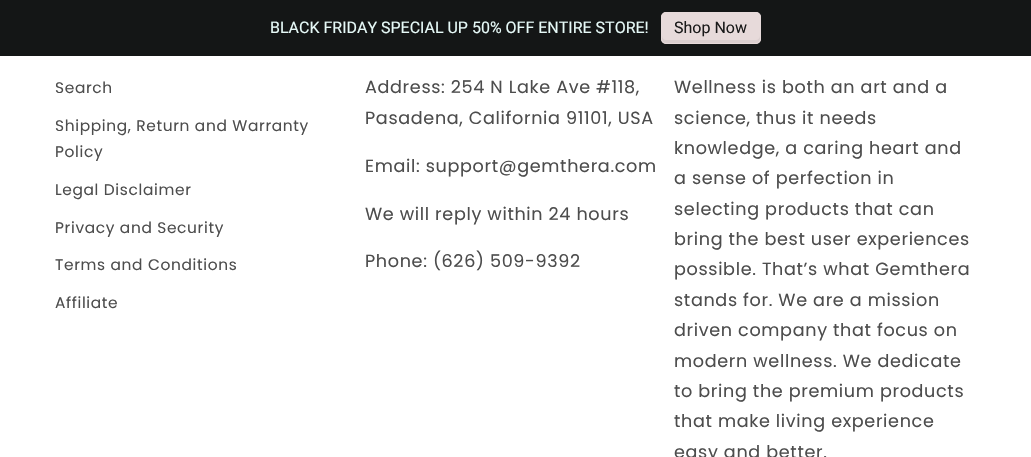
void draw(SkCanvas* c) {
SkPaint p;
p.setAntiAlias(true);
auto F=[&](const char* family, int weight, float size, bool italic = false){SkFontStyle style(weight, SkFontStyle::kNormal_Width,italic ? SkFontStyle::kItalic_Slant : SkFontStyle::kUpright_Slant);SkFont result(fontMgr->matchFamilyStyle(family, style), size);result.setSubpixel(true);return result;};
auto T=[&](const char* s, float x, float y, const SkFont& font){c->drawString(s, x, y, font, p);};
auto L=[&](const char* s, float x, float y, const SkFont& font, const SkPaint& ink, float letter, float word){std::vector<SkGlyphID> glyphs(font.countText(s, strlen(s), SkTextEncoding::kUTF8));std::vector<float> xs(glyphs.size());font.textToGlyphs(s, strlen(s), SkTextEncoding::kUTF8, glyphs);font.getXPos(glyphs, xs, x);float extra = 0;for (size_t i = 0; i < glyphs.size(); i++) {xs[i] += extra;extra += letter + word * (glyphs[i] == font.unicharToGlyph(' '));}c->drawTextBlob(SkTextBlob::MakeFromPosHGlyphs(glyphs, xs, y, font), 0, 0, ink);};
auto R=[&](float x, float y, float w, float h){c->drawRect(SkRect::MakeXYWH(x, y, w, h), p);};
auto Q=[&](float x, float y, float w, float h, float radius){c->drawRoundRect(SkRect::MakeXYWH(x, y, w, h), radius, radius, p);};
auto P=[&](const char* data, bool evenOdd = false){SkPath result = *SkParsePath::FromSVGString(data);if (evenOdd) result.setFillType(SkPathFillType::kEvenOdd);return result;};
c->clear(0xffffffff);
p.setColor(0xff141616);
R(0,0,1031,56);
auto f1 = F("Roboto",400,16);
p.setColor(0xffe6f9f7);
T("BLACK FRIDAY SPECIAL UP 50% OFF ENTIRE STORE!",270,33,f1);
p.setColor(0xffe7dada);
Q(661,12,100,32,5);
p.setColor(0xffdbcfcf);
c->drawPath(P("M662 36v3c0 2 2 4 4 4h90c2 0 4-2 4-4v-3c0 2-2 4-4 4h-90c-2 0-4-2-4-4z"),p);
p.setStroke(true);
p.setStrokeWidth(1);
p.setColor(0xffe7dada);
c->drawRoundRect(SkRect::MakeXYWH(661.5,12.5,99,31),4.5,4.5,p);
p.setStroke(false);
p.setColor(0xff1a1a1a);
T("Shop Now",674,33,f1);
auto f2 = F("Poppins",400,15.4);
p.setColor(0xff4d4d4d);
L("Search",55,93,f2,p,.65,0);
L("Shipping, Return and Warranty",55,131,f2,p,.65,0);
L("Policy",55,157,f2,p,.65,0);
L("Legal Disclaimer",55,195,f2,p,.65,0);
L("Privacy and Security",55,233,f2,p,.65,0);
L("Terms and Conditions",55,270,f2,p,.65,0);
L("Affiliate",55,308,f2,p,.65,0);
auto f3 = F("Poppins",400,17.6);
L("Address: 254 N Lake Ave #118,",365,93,f3,p,.65,0);
L("Pasadena, California 91101, USA",365,124,f3,p,.65,0);
L("Email: support@gemthera.com",365,172,f3,p,.65,0);
L("We will reply within 24 hours",365,220,f3,p,.65,0);
L("Phone: (626) 509-9392",365,267,f3,p,.65,0);
L("Wellness is both an art and a",674,93,f3,p,.65,0);
L("science, thus it needs",674,124,f3,p,.65,0);
L("knowledge, a caring heart and",674,154,f3,p,.65,0);
L("a sense of perfection in",674,184,f3,p,.65,0);
L("selecting products that can",674,215,f3,p,.65,0);
L("bring the best user experiences",674,245,f3,p,.65,0);
L("possible. That’s what Gemthera",674,275,f3,p,.65,0);
L("stands for. We are a mission",674,306,f3,p,.65,0);
L("driven company that focus on",674,336,f3,p,.65,0);
L("modern wellness. We dedicate",674,367,f3,p,.65,0);
L("to bring the premium products",674,397,f3,p,.65,0);
L("that make living experience",674,427,f3,p,.65,0);
L("easy and better.",674,458,f3,p,.65,0);
}
